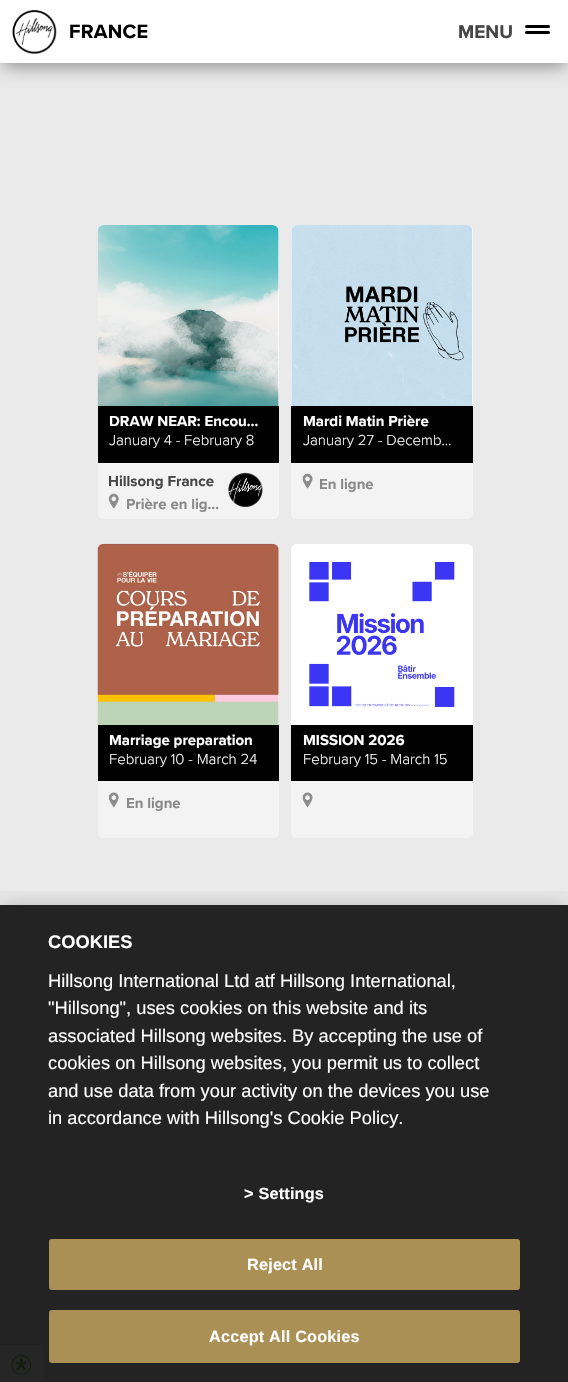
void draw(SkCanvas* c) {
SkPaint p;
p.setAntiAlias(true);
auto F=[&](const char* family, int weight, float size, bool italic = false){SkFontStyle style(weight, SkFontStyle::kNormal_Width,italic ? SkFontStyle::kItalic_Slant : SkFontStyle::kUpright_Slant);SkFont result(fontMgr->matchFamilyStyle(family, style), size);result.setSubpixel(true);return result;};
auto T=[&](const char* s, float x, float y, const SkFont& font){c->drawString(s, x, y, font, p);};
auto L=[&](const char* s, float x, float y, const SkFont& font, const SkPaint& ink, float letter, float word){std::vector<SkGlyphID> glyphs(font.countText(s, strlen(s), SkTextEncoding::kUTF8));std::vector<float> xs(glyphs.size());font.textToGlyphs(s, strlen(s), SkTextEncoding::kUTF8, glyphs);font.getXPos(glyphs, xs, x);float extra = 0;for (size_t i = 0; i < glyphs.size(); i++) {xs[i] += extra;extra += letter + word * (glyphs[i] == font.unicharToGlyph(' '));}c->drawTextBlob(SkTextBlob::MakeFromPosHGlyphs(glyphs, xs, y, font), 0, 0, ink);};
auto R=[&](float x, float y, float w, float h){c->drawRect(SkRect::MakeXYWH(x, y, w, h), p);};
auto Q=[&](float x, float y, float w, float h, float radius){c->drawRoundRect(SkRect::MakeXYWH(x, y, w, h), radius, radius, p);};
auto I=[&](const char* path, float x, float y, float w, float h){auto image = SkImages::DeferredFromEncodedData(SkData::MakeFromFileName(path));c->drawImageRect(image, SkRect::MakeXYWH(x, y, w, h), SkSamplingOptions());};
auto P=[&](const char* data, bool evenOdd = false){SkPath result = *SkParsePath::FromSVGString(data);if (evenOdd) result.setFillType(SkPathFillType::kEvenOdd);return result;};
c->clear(0xffeaeaea);
p.setColor(0xff232323);
R(0,905,568,477);
p.setColor(0xff808080);
p.setMaskFilter(SkMaskFilter::MakeBlur(kNormal_SkBlurStyle, 9.5));
c->drawRect(SkRect::MakeXYWH(3,8,563,57),p);
p.setMaskFilter(nullptr);
p.setColor(0xffffffff);
R(0,0,568,63);
I("1.png",12,9,45,45);
auto f1 = F("Proxima Nova",700,20);
p.setColor(0xff000000);
L("FRANCE",69,38,f1,p,.25,0);
auto f2 = F("Proxima Nova",700,19);
p.setColor(0xff464646);
T("MENU",458,38,f2);
p.setColor(0xff000000);
Q(525,25,25,3,1.5);
Q(525,31,25,3,1.5);
p.setColor(0xffffffff);
Q(98,225,181,294,6);
I("2.png",97,225,182,182);
p.setColor(0xff000000);
R(98,406,181,57);
auto f3 = F("Proxima Nova",700,15);
p.setColor(0xffffffff);
T("DRAW NEAR: Encou…",109,426,f3);
auto f4 = F("Proxima Nova",300,15);
T("January 4 - February 8",109,445,f4);
p.setColor(0xfff3f3f3);
c->drawPath(P("M98 463h181v50c0 3.5-2.5 6-6 6h-169c-3.5 0-6-2.5-6-6z"),p);
p.setColor(0xff464646);
T("Hillsong France",108,486,f3);
I("3.png",108,493,11,16);
p.setColor(0xff898989);
T("Prière en lig…",126,509,f3);
I("4.png",227,472,36,36);
p.setColor(0xffffffff);
Q(291,225,182,294,6);
I("5.png",291,225,182,181);
p.setColor(0xff000000);
R(291,406,182,57);
p.setColor(0xffffffff);
T("Mardi Matin Prière",303,426,f3);
T("January 27 - Decemb…",303,445,f4);
p.setColor(0xfff3f3f3);
c->drawPath(P("M291 463h182v50c0 3.5-2.5 6-6 6h-170c-3.5 0-6-2.5-6-6z"),p);
I("6.png",302,473,11,16);
p.setColor(0xff898989);
T("En ligne",319,489,f3);
p.setColor(0xffffffff);
Q(98,544,181,294,6);
I("7.png",97,543,182,182);
p.setColor(0xff000000);
R(98,725,181,56);
p.setColor(0xffffffff);
T("Marriage preparation",109,745,f3);
T("February 10 - March 24",109,764,f4);
p.setColor(0xfff3f3f3);
c->drawPath(P("M98 781h181v51c0 3.5-2.5 6-6 6h-169c-3.5 0-6-2.5-6-6z"),p);
I("8.png",108,792,11,16);
p.setColor(0xff898989);
T("En ligne",126,808,f3);
p.setColor(0xffffffff);
Q(291,544,182,294,6);
I("9.png",294,544,161,163);
p.setColor(0xff000000);
R(291,725,182,56);
p.setColor(0xffffffff);
T("MISSION 2026",303,745,f3);
T("February 15 - March 15",303,764,f4);
p.setColor(0xfff3f3f3);
c->drawPath(P("M291 781h182v51c0 3.5-2.5 6-6 6h-170c-3.5 0-6-2.5-6-6z"),p);
I("10.png",302,792,11,16);
p.setColor(0xff262626);
R(0,1345,43,37);
I("11.png",11,1355,20,21);
c->save();
c->clipRect(SkRect::MakeXYWH(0,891,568,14));
p.setColor(0x33000000);
p.setMaskFilter(SkMaskFilter::MakeBlur(kNormal_SkBlurStyle, 11));
c->drawRect(SkRect::MakeXYWH(0,905,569,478),p);
p.setMaskFilter(nullptr);
c->restore();
auto f5 = F("Liberation Sans",700,18.3);
p.setColor(0xffffffff);
T("COOKIES",48,948,f5);
auto f6 = F("Liberation Sans",400,18.3);
T("Hillsong International Ltd atf Hillsong International,",48,987,f6);
T("\"Hillsong\", uses cookies on this website and its",48,1014,f6);
T("associated Hillsong websites. By accepting the use of",48,1042,f6);
T("cookies on Hillsong websites, you permit us to collect",48,1069,f6);
T("and use data from your activity on the devices you use",48,1097,f6);
T("in accordance with Hillsong's Cookie Policy.",48,1124,f6);
auto f7 = F("Liberation Sans",700,16.25);
L("> Settings",244,1199,f7,p,.2,0);
p.setColor(0xffaa9055);
c->drawRoundRect(SkRect::MakeXYWH(49.5,1239.5,470,50),2,2,p);
p.setStroke(true);
p.setStrokeWidth(1);
c->drawRoundRect(SkRect::MakeXYWH(49.5,1239.5,470,50),2,2,p);
p.setStroke(false);
p.setColor(0xffffffff);
L("Reject All",247,1270,f7,p,.2,0);
p.setColor(0xffaa9055);
c->drawRoundRect(SkRect::MakeXYWH(49.5,1310.5,470,52),2,2,p);
p.setStroke(true);
c->drawRoundRect(SkRect::MakeXYWH(49.5,1310.5,470,52),2,2,p);
p.setStroke(false);
p.setColor(0xffffffff);
L("Accept All Cookies",209,1342,f7,p,.2,0);
}
